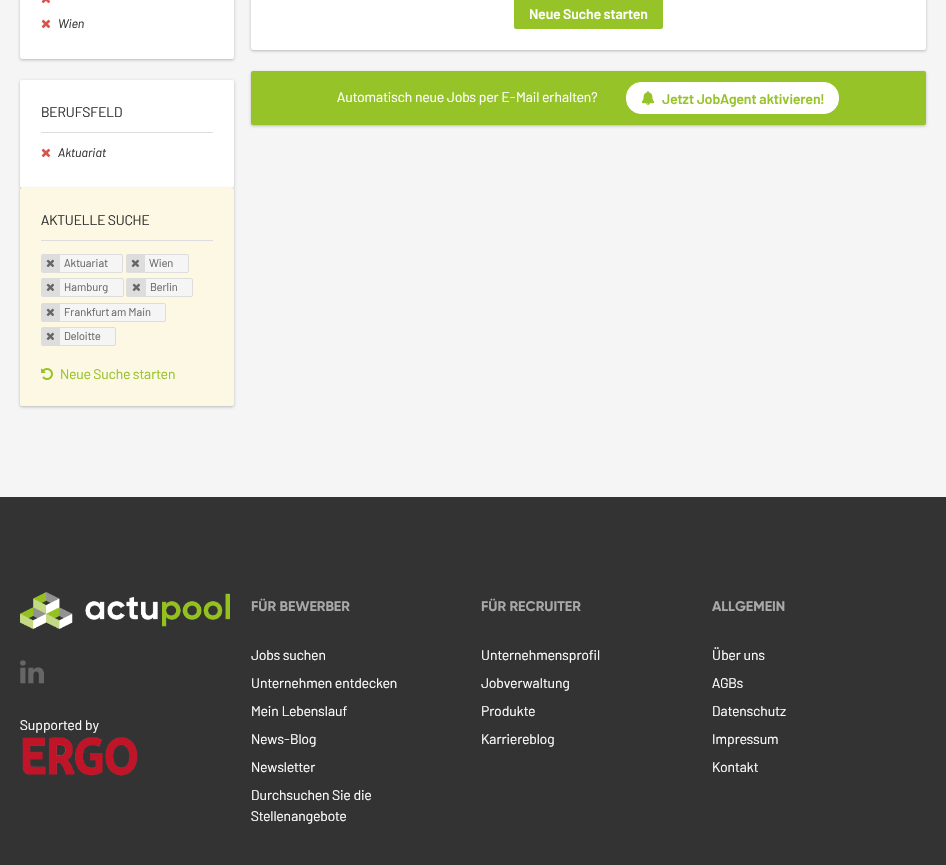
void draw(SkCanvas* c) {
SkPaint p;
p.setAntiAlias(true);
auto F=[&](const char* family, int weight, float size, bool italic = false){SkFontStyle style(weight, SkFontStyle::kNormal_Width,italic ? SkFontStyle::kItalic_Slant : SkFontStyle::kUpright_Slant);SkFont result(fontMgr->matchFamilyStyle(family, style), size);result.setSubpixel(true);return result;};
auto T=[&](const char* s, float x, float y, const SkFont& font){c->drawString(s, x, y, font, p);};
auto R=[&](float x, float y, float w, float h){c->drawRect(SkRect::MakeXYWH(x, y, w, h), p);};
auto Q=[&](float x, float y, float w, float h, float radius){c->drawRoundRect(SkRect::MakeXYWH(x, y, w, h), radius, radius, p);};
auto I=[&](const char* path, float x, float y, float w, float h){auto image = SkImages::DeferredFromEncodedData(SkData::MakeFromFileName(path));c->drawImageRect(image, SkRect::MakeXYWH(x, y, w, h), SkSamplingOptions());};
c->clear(0xfff5f5f5);
p.setColor(0x40000000);
p.setMaskFilter(SkMaskFilter::MakeBlur(kNormal_SkBlurStyle, 1.5));
c->drawRoundRect(SkRect::MakeXYWH(20,-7,214,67),2,2,p);
p.setMaskFilter(nullptr);
p.setColor(0xffffffff);
Q(20,-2,214,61,2);
I("1.png",41,0,10,4);
I("2.png",41,19,10,10);
auto f1 = F("Barlow",400,12.5,true);
p.setColor(0xff333333);
T("Wien",58,28,f1);
p.setColor(0x40000000);
p.setMaskFilter(SkMaskFilter::MakeBlur(kNormal_SkBlurStyle, 1.5));
c->drawRoundRect(SkRect::MakeXYWH(20,81,214,108),2,2,p);
p.setMaskFilter(nullptr);
p.setColor(0xffffffff);
Q(20,80,214,108,2);
p.setColor(0xffdddddd);
R(41,132,172,1);
auto f2 = F("Barlow",400,14);
p.setColor(0xff333333);
T("BERUFSFELD",41,117,f2);
I("2.png",41,148,10,10);
T("Aktuariat",58,157,f1);
p.setColor(0x40000000);
p.setMaskFilter(SkMaskFilter::MakeBlur(kNormal_SkBlurStyle, 1.5));
c->drawRoundRect(SkRect::MakeXYWH(20,189,214,218),2,2,p);
p.setMaskFilter(nullptr);
p.setColor(0xfffcf8e3);
Q(20,188,214,218,2);
p.setColor(0xffdddddd);
R(41,240,172,1);
p.setColor(0xff333333);
T("AKTUELLE SUCHE",41,225,f2);
p.setColor(0xfff5f5f5);
c->drawRoundRect(SkRect::MakeXYWH(41.5,254.5,81,18),1.5,1.5,p);
p.setStroke(true);
p.setStrokeWidth(1);
p.setColor(0xffdddddd);
c->drawRoundRect(SkRect::MakeXYWH(41.5,254.5,81,18),1.5,1.5,p);
p.setStroke(false);
R(42,255,18,17);
I("3.png",46,259,8,8);
auto f3 = F("Barlow",400,11.25);
p.setColor(0xff666666);
T("Aktuariat",64,267,f3);
p.setColor(0xfff5f5f5);
c->drawRoundRect(SkRect::MakeXYWH(126.5,254.5,62,18),1.5,1.5,p);
p.setStroke(true);
p.setColor(0xffdddddd);
c->drawRoundRect(SkRect::MakeXYWH(126.5,254.5,62,18),1.5,1.5,p);
p.setStroke(false);
R(127,255,18,17);
I("3.png",131,259,8,8);
p.setColor(0xff666666);
T("Wien",149,267,f3);
p.setColor(0xfff5f5f5);
c->drawRoundRect(SkRect::MakeXYWH(41.5,278.5,82,18),1.5,1.5,p);
p.setStroke(true);
p.setColor(0xffdddddd);
c->drawRoundRect(SkRect::MakeXYWH(41.5,278.5,82,18),1.5,1.5,p);
p.setStroke(false);
R(42,279,18,17);
I("3.png",46,283,8,8);
p.setColor(0xff666666);
T("Hamburg",64,291,f3);
p.setColor(0xfff5f5f5);
c->drawRoundRect(SkRect::MakeXYWH(126.5,278.5,66,18),1.5,1.5,p);
p.setStroke(true);
p.setColor(0xffdddddd);
c->drawRoundRect(SkRect::MakeXYWH(126.5,278.5,66,18),1.5,1.5,p);
p.setStroke(false);
R(127,279,19,17);
I("3.png",132,283,8,8);
p.setColor(0xff666666);
T("Berlin",150,291,f3);
p.setColor(0xfff5f5f5);
c->drawRoundRect(SkRect::MakeXYWH(41.5,303.5,124,18),1.5,1.5,p);
p.setStroke(true);
p.setColor(0xffdddddd);
c->drawRoundRect(SkRect::MakeXYWH(41.5,303.5,124,18),1.5,1.5,p);
p.setStroke(false);
R(42,304,18,17);
I("3.png",46,308,8,8);
p.setColor(0xff666666);
T("Frankfurt am Main",64,316,f3);
p.setColor(0xfff5f5f5);
c->drawRoundRect(SkRect::MakeXYWH(41.5,327.5,74,18),1.5,1.5,p);
p.setStroke(true);
p.setColor(0xffdddddd);
c->drawRoundRect(SkRect::MakeXYWH(41.5,327.5,74,18),1.5,1.5,p);
p.setStroke(false);
R(42,328,18,17);
I("3.png",46,332,8,8);
p.setColor(0xff666666);
T("Deloitte",64,340,f3);
I("4.png",41,368,12,12);
p.setColor(0xff96c327);
T("Neue Suche starten",60,379,f2);
p.setColor(0x40000000);
p.setMaskFilter(SkMaskFilter::MakeBlur(kNormal_SkBlurStyle, 1.5));
c->drawRoundRect(SkRect::MakeXYWH(251,-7,675,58),2,2,p);
p.setMaskFilter(nullptr);
p.setColor(0xffffffff);
Q(251,-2,675,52,2);
p.setColor(0xff96c327);
c->drawRoundRect(SkRect::MakeXYWH(514.5,-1.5,148,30),1.5,1.5,p);
p.setStroke(true);
c->drawRoundRect(SkRect::MakeXYWH(514.5,-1.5,148,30),1.5,1.5,p);
auto f4 = F("Barlow",600,14);
p.setStroke(false);
p.setColor(0xffffffff);
T("Neue Suche starten",529,19,f4);
p.setColor(0x40000000);
p.setMaskFilter(SkMaskFilter::MakeBlur(kNormal_SkBlurStyle, 1.5));
c->drawRoundRect(SkRect::MakeXYWH(251,72,675,54),2,2,p);
p.setMaskFilter(nullptr);
p.setColor(0xff96c327);
Q(251,71,675,54,2);
p.setColor(0xffffffff);
T("Automatisch neue Jobs per E-Mail erhalten?",337,102,f2);
c->drawRoundRect(SkRect::MakeXYWH(626.5,82.5,212,31),14.5,14.5,p);
p.setStroke(true);
c->drawRoundRect(SkRect::MakeXYWH(626.5,82.5,212,31),14.5,14.5,p);
I("5.png",641,91,14,14);
p.setStroke(false);
p.setColor(0xff96c327);
T("Jetzt JobAgent aktivieren!",662,104,f4);
p.setColor(0xff333333);
R(0,497,946,368);
I("6.png",20,592,210,37);
I("7.png",20,660,24,24);
p.setColor(0xffffffff);
T("Supported by",20,730,f2);
I("8.png",22,737,116,39);
auto f5 = F("Gilroy",400,14);
p.setColor(0xffa8a8a8);
T("FÜR BEWERBER",251,611,f5);
p.setColor(0xffffffff);
T("Jobs suchen",251,660,f2);
T("Unternehmen entdecken",251,688,f2);
T("Mein Lebenslauf",251,716,f2);
T("News-Blog",251,744,f2);
T("Newsletter",251,772,f2);
T("Durchsuchen Sie die",251,800,f2);
T("Stellenangebote",251,821,f2);
p.setColor(0xffa8a8a8);
T("FÜR RECRUITER",481,611,f5);
p.setColor(0xffffffff);
T("Unternehmensprofil",481,660,f2);
T("Jobverwaltung",481,688,f2);
T("Produkte",481,716,f2);
T("Karriereblog",481,744,f2);
p.setColor(0xffa8a8a8);
T("ALLGEMEIN",712,611,f5);
p.setColor(0xffffffff);
T("Über uns",712,660,f2);
T("AGBs",712,688,f2);
T("Datenschutz",712,716,f2);
T("Impressum",712,744,f2);
T("Kontakt",712,772,f2);
}
